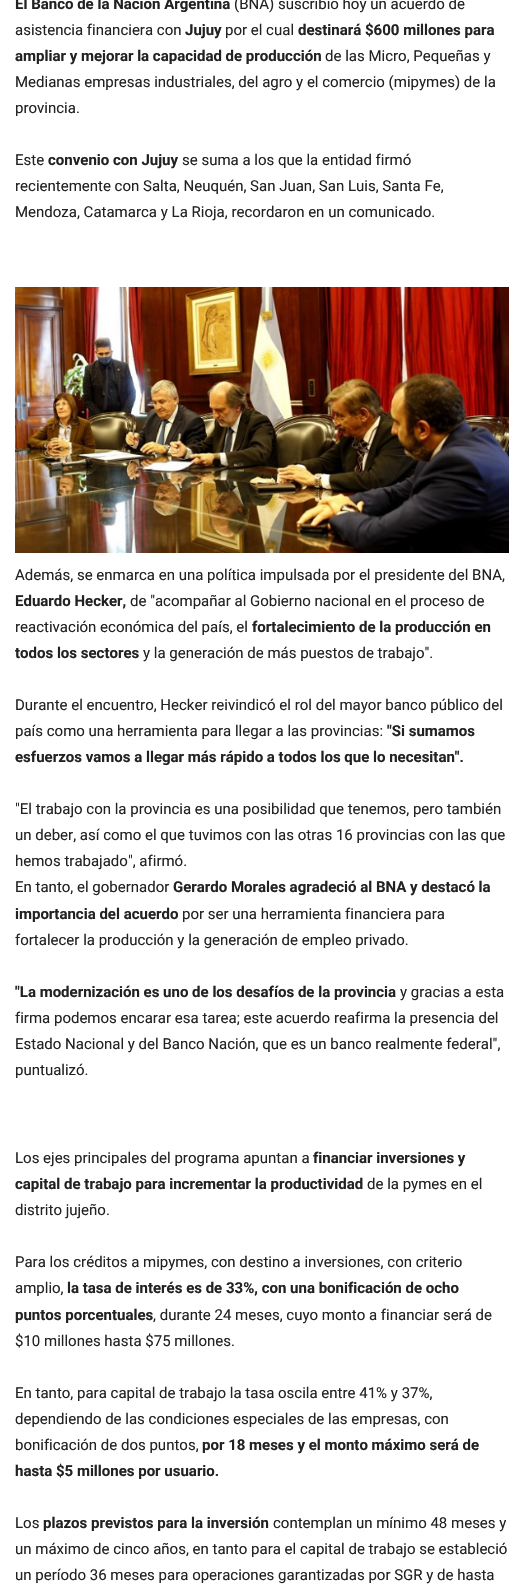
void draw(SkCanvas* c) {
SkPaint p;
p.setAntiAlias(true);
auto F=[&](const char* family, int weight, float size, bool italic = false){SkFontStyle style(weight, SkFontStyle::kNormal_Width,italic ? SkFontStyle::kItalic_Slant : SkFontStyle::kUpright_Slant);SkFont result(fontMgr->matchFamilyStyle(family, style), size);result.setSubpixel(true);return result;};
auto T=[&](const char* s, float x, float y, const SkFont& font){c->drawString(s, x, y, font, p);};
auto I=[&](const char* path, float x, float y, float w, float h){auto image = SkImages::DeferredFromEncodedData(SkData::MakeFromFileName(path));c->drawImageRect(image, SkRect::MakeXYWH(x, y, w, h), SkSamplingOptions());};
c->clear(0xffffffff);
auto f1 = F("Roboto",700,15);
p.setColor(0xff222222);
T("El Banco de la Nación Argentina",15,9,f1);
auto f2 = F("Roboto",400,15);
T("(BNA) suscribió hoy un acuerdo de",234,9,f2);
T("asistencia financiera con",15,35,f2);
T("Jujuy",185,35,f1);
T("por el cual",225,35,f2);
T("destinará $600 millones para",298,35,f1);
T("ampliar y mejorar la capacidad de producción",15,61,f1);
T("de las Micro, Pequeñas y",325,61,f2);
T("Medianas empresas industriales, del agro y el comercio (mipymes) de la",15,87,f2);
T("provincia.",15,113,f2);
T("Este",15,165,f2);
T("convenio con Jujuy",48,165,f1);
T("se suma a los que la entidad firmó",182,165,f2);
T("recientemente con Salta, Neuquén, San Juan, San Luis, Santa Fe,",15,191,f2);
T("Mendoza, Catamarca y La Rioja, recordaron en un comunicado.",15,217,f2);
I("1.png",15,287,494,266);
T("Además, se enmarca en una política impulsada por el presidente del BNA,",15,580,f2);
T("Eduardo Hecker,",15,606,f1);
T("de \"acompañar al Gobierno nacional en el proceso de",130,606,f2);
T("reactivación económica del país, el",15,632,f2);
T("fortalecimiento de la producción en",252,632,f1);
T("todos los sectores",15,658,f1);
T("y la generación de más puestos de trabajo\".",143,658,f2);
T("Durante el encuentro, Hecker reivindicó el rol del mayor banco público del",15,710,f2);
T("país como una herramienta para llegar a las provincias:",15,736,f2);
T("\"Si sumamos",387,736,f1);
T("esfuerzos vamos a llegar más rápido a todos los que lo necesitan\".",15,762,f1);
T("\"El trabajo con la provincia es una posibilidad que tenemos, pero también",15,814,f2);
T("un deber, así como el que tuvimos con las otras 16 provincias con las que",15,840,f2);
T("hemos trabajado\", afirmó.",15,866,f2);
T("En tanto, el gobernador",15,892,f2);
T("Gerardo Morales agradeció al BNA y destacó la",173,892,f1);
T("importancia del acuerdo",15,919,f1);
T("por ser una herramienta financiera para",182,919,f2);
T("fortalecer la producción y la generación de empleo privado.",15,945,f2);
T("\"La modernización es uno de los desafíos de la provincia",15,997,f1);
T("y gracias a esta",400,997,f2);
T("firma podemos encarar esa tarea; este acuerdo reafirma la presencia del",15,1023,f2);
T("Estado Nacional y del Banco Nación, que es un banco realmente federal\",",15,1049,f2);
T("puntualizó.",15,1075,f2);
T("Los ejes principales del programa apuntan a",15,1163,f2);
T("financiar inversiones y",313,1163,f1);
T("capital de trabajo para incrementar la productividad",15,1189,f1);
T("de la pymes en el",367,1189,f2);
T("distrito jujeño.",15,1215,f2);
T("Para los créditos a mipymes, con destino a inversiones, con criterio",15,1267,f2);
T("amplio,",15,1293,f2);
T("la tasa de interés es de 33%, con una bonificación de ocho",67,1293,f1);
T("puntos porcentuales",15,1320,f1);
T(", durante 24 meses, cuyo monto a financiar será de",153,1320,f2);
T("$10 millones hasta $75 millones.",15,1346,f2);
T("En tanto, para capital de trabajo la tasa oscila entre 41% y 37%,",15,1398,f2);
T("dependiendo de las condiciones especiales de las empresas, con",15,1424,f2);
T("bonificación de dos puntos,",15,1450,f2);
T("por 18 meses y el monto máximo será de",202,1450,f1);
T("hasta $5 millones por usuario.",15,1476,f1);
T("Los",15,1528,f2);
T("plazos previstos para la inversión",43,1528,f1);
T("contemplan un mínimo 48 meses y",273,1528,f2);
T("un máximo de cinco años, en tanto para el capital de trabajo se estableció",15,1554,f2);
T("un período 36 meses para operaciones garantizadas por SGR y de hasta",15,1580,f2);
}
